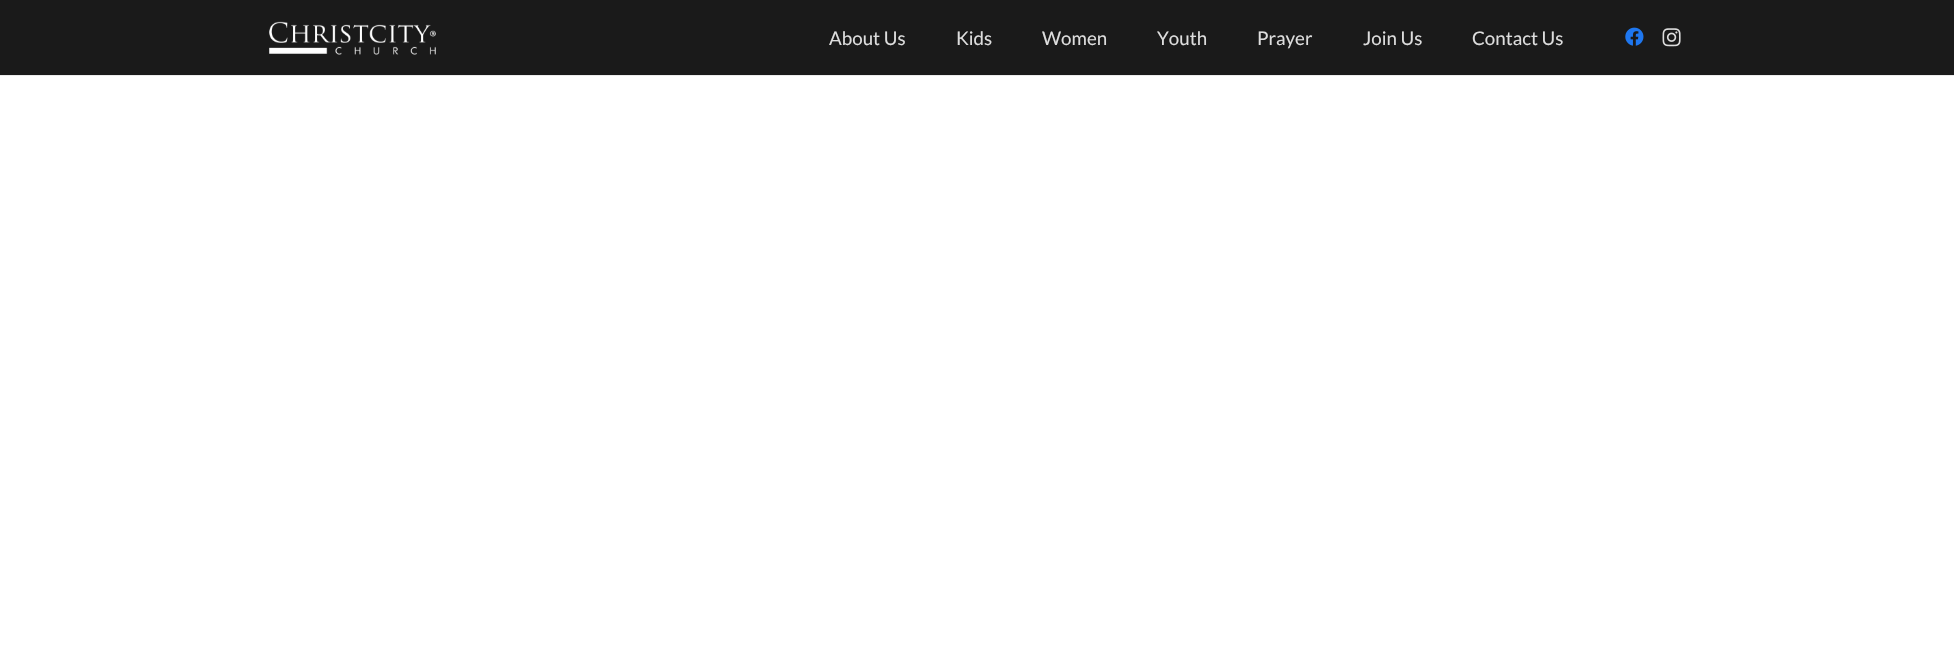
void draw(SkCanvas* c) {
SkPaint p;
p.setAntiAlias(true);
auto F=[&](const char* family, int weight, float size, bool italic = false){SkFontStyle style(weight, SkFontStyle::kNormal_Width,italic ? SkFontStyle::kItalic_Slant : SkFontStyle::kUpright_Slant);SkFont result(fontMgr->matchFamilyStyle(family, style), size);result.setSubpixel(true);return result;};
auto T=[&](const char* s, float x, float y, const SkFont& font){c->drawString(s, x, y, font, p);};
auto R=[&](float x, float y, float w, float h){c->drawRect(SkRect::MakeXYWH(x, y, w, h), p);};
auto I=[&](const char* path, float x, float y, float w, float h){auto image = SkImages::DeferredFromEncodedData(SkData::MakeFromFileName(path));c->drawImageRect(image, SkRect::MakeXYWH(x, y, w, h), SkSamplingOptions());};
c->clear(0xffffffff);
p.setColor(0xffebebeb);
R(0,75,1954,1);
p.setColor(0xff1a1a1a);
R(0,0,1954,75);
I("1.png",269,21,167,34);
auto f1 = F("Lato",400,18.75);
p.setColor(0xffdddddd);
T("About Us",829,45,f1);
T("Kids",956,45,f1);
T("Women",1042,45,f1);
T("Youth",1157,45,f1);
T("Prayer",1257,45,f1);
T("Join Us",1363,45,f1);
T("Contact Us",1472,45,f1);
I("2.png",1625,27,19,19);
I("3.png",1662,28,19,19);
}
